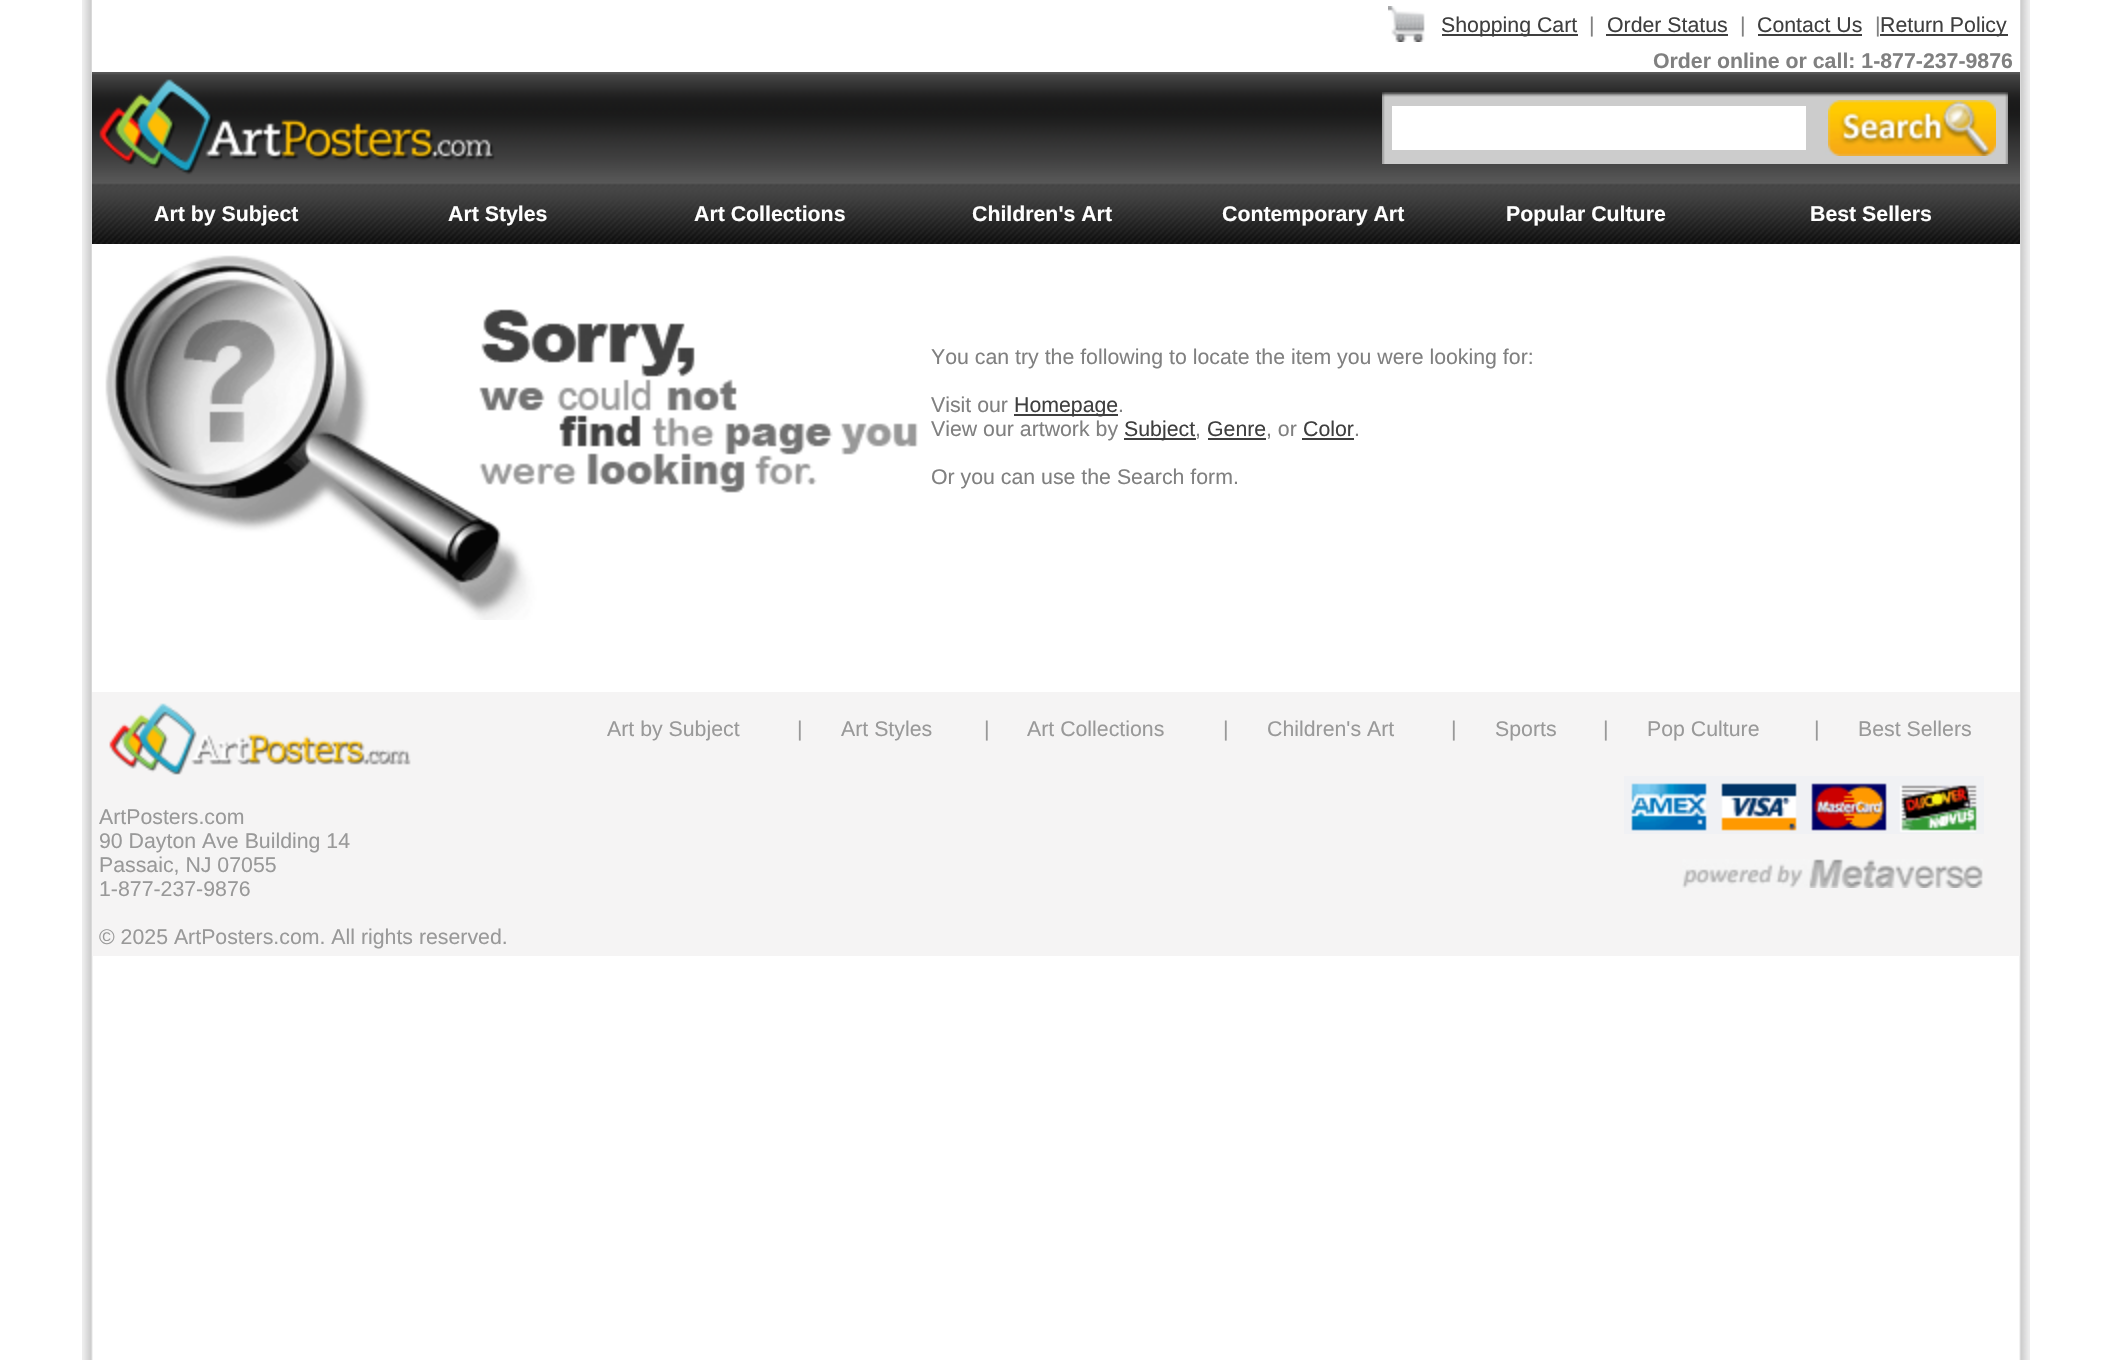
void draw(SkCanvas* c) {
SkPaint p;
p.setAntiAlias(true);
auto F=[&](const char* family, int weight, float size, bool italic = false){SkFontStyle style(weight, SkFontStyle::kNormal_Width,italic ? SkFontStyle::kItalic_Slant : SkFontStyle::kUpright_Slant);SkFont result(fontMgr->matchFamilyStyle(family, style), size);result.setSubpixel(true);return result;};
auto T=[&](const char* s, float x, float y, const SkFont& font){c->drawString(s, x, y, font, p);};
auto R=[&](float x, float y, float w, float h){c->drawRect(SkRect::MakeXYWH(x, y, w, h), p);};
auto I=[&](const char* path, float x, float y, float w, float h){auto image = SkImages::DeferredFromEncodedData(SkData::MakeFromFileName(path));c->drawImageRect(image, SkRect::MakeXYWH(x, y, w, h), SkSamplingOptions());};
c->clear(0xffffffff);
I("1.png",82,0,1948,1360);
p.setColor(0xffffffff);
R(92,0,1928,692);
I("2.png",1388,6,37,36);
p.setColor(0xff3f3f3f);
R(1442,34,136,2);
auto f1 = F("Liberation Sans",400,21.3);
T("Shopping Cart",1441,32,f1);
p.setColor(0xff808080);
T("|",1589,32,f1);
p.setColor(0xff3f3f3f);
T("Order Status",1607,32,f1);
R(1606,34,122,2);
p.setColor(0xff808080);
T("|",1740,32,f1);
p.setColor(0xff3f3f3f);
T("Contact Us",1757,32,f1);
R(1758,34,104,2);
p.setColor(0xff808080);
T("|",1875,32,f1);
p.setColor(0xff3f3f3f);
R(1880,34,128,2);
T("Return Policy",1880,32,f1);
auto f2 = F("Liberation Sans",700,21.3);
p.setColor(0xff808080);
T("Order online or call: 1-877-237-9876",1653,68,f2);
I("3.png",92,72,1928,110);
I("4.png",99,79,396,96);
I("5.png",1382,92,626,72);
p.setColor(0xffffffff);
R(1392,106,414,44);
I("6.png",1828,100,168,56);
I("7.png",92,182,1928,62);
T("Art by Subject",154,221,f2);
T("Art Styles",448,221,f2);
T("Art Collections",694,221,f2);
T("Children's Art",972,221,f2);
T("Contemporary Art",1222,221,f2);
T("Popular Culture",1506,221,f2);
T("Best Sellers",1810,221,f2);
I("8.png",105,255,813,365);
p.setColor(0xff808080);
T("You can try the following to locate the item you were looking for:",931,364,f1);
T("Visit our",931,412,f1);
p.setColor(0xff3f3f3f);
R(1014,414,104,2);
T("Homepage",1014,412,f1);
p.setColor(0xff808080);
T(".",1118,412,f1);
T("View our artwork by",931,436,f1);
p.setColor(0xff3f3f3f);
R(1124,438,72,2);
T("Subject",1124,436,f1);
p.setColor(0xff808080);
T(",",1195,436,f1);
p.setColor(0xff3f3f3f);
T("Genre",1207,436,f1);
R(1208,438,58,2);
p.setColor(0xff808080);
T(", or",1266,436,f1);
p.setColor(0xff3f3f3f);
T("Color",1303,436,f1);
R(1302,438,52,2);
p.setColor(0xff808080);
T(".",1354,436,f1);
T("Or you can use the Search form.",931,484,f1);
p.setColor(0xfff5f4f4);
R(92,692,1928,264);
p.setColor(0xff999999);
T("Art by Subject",607,736,f1);
T("|",797,736,f1);
T("Art Styles",841,736,f1);
T("|",984,736,f1);
T("Art Collections",1027,736,f1);
T("|",1223,736,f1);
T("Children's Art",1267,736,f1);
T("|",1451,736,f1);
T("Sports",1495,736,f1);
T("|",1603,736,f1);
T("Pop Culture",1647,736,f1);
T("|",1814,736,f1);
T("Best Sellers",1858,736,f1);
I("9.png",1624,776,360,58);
I("10.png",1682,859,301,29);
I("11.png",109,703,302,72);
T("ArtPosters.com",99,824,f1);
T("90 Dayton Ave Building 14",99,848,f1);
T("Passaic, NJ 07055",99,872,f1);
T("1-877-237-9876",99,896,f1);
T("© 2025 ArtPosters.com. All rights reserved.",99,944,f1);
}
